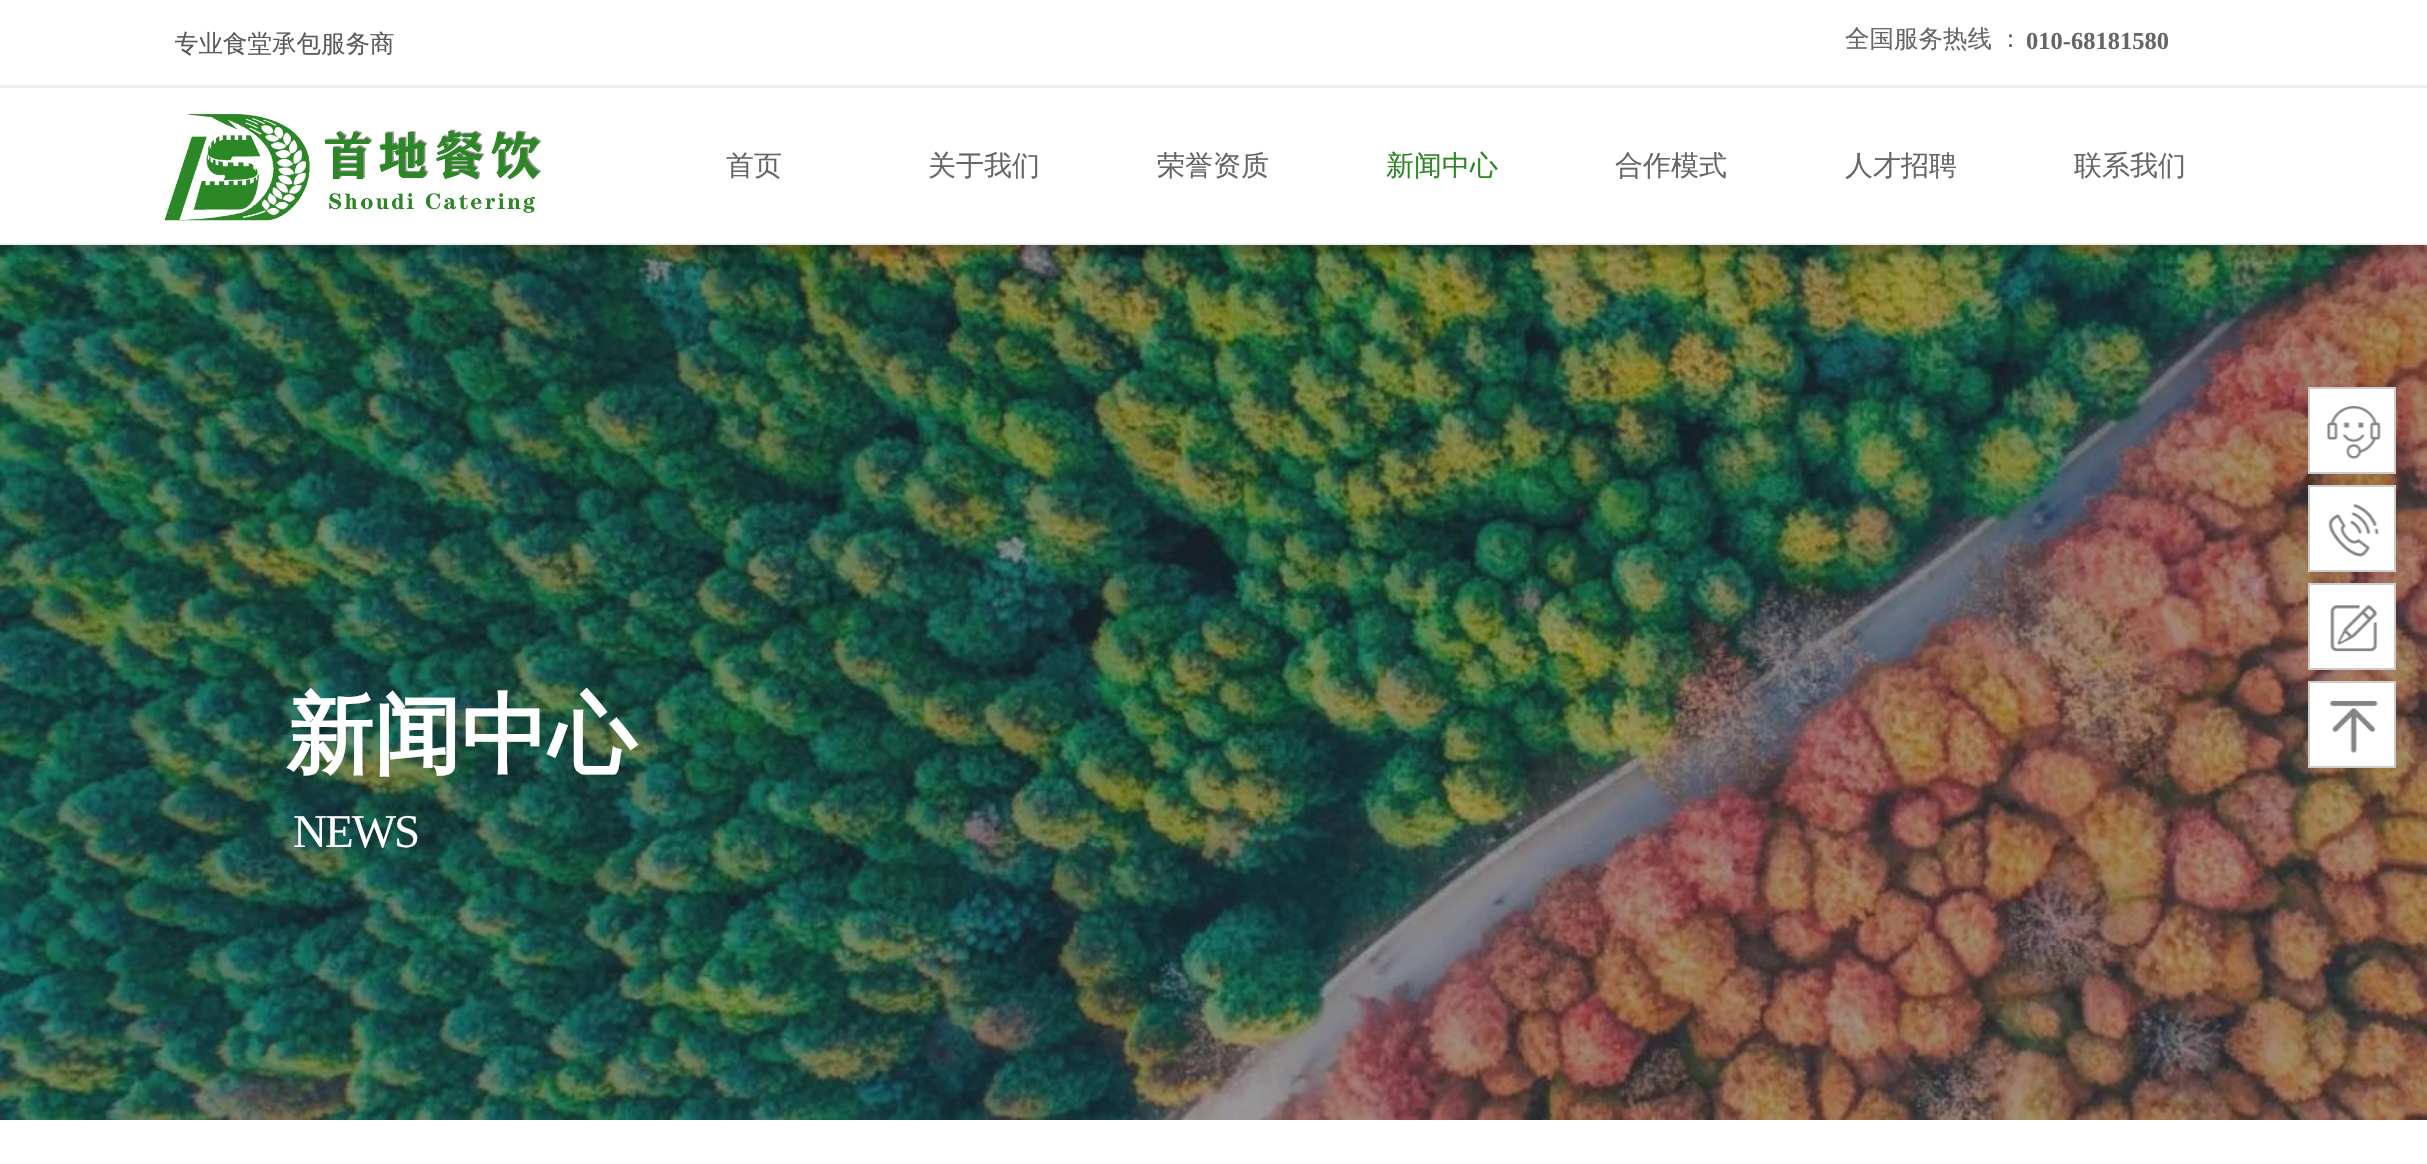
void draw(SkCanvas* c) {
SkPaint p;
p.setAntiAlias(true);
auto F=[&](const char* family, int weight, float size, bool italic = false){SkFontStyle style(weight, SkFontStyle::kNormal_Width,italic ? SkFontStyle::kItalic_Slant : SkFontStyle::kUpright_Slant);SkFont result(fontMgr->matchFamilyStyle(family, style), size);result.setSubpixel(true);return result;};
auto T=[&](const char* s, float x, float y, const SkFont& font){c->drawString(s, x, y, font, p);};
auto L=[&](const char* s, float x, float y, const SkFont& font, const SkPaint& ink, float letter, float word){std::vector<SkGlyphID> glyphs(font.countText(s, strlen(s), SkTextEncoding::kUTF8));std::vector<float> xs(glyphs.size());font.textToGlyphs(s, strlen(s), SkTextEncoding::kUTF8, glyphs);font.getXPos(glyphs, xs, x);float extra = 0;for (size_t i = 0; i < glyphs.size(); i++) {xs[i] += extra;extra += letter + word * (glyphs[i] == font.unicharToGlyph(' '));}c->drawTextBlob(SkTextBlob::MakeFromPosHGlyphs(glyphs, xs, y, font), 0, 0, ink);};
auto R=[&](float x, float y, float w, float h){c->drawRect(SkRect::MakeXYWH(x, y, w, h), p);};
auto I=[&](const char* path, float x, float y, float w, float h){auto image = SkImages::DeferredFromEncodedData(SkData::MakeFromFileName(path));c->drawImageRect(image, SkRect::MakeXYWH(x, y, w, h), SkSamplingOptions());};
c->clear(0xffffffff);
c->save();
c->clipRect(SkRect::MakeXYWH(175,28,467,33));
auto f1 = F("WenQuanYi Zen Hei",500,24.5);
p.setColor(0xff5a5a5a);
T("专业食堂承包服务商",174,52,f1);
c->restore();
p.setColor(0xff666666);
L("全国服务热线 ：",1845,47,f1,p,0,-1);
c->save();
c->clipRect(SkRect::MakeXYWH(2027,25,213,36));
auto f2 = F("Liberation Serif",700,24.5);
T("010-68181580",2026,49,f2);
c->restore();
p.setColor(0xffeeeeee);
R(0,85,2427,3);
I("4.png",0,245,2427,875);
c->save();
c->clipRect(SkRect::MakeXYWH(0,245,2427,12));
p.setColor(0x33000000);
p.setMaskFilter(SkMaskFilter::MakeBlur(kNormal_SkBlurStyle, 2.5));
c->drawRect(SkRect::MakeXYWH(0,96,2427,158),p);
p.setMaskFilter(nullptr);
c->restore();
I("1.png",0,243,2427,2);
I("2.png",164,113,146,108);
I("3.png",324,129,218,84);
auto f3 = F("WenQuanYi Zen Hei",500,28);
p.setColor(0xff666666);
T("首页",726,175,f3);
T("关于我们",928,175,f3);
T("荣誉资质",1157,175,f3);
p.setColor(0xff2c8727);
T("新闻中心",1386,175,f3);
p.setColor(0xff666666);
T("合作模式",1615,175,f3);
T("人才招聘",1845,175,f3);
T("联系我们",2074,175,f3);
auto f4 = F("WenQuanYi Zen Hei",700,87.5);
p.setColor(0xffffffff);
T("新闻中心",286,765,f4);
auto f5 = F("Liberation Serif",400,47);
L("NEWS",293,847,f5,p,-2,0);
c->drawRect(SkRect::MakeXYWH(2309,388,86,85),p);
p.setStroke(true);
p.setStrokeWidth(2);
p.setColor(0xffcccccc);
c->drawRect(SkRect::MakeXYWH(2309,388,86,85),p);
I("5.png",2327,406,54,53);
p.setStroke(false);
p.setColor(0xffffffff);
c->drawRect(SkRect::MakeXYWH(2309,486,86,85),p);
p.setStroke(true);
p.setColor(0xffcccccc);
c->drawRect(SkRect::MakeXYWH(2309,486,86,85),p);
I("6.png",2328,504,51,53);
p.setStroke(false);
p.setColor(0xffffffff);
c->drawRect(SkRect::MakeXYWH(2309,584,86,85),p);
p.setStroke(true);
p.setColor(0xffcccccc);
c->drawRect(SkRect::MakeXYWH(2309,584,86,85),p);
I("7.png",2330,605,48,47);
p.setStroke(false);
p.setColor(0xffffffff);
c->drawRect(SkRect::MakeXYWH(2309,682,86,85),p);
p.setStroke(true);
p.setColor(0xffcccccc);
c->drawRect(SkRect::MakeXYWH(2309,682,86,85),p);
I("8.png",2329,700,49,53);
}
